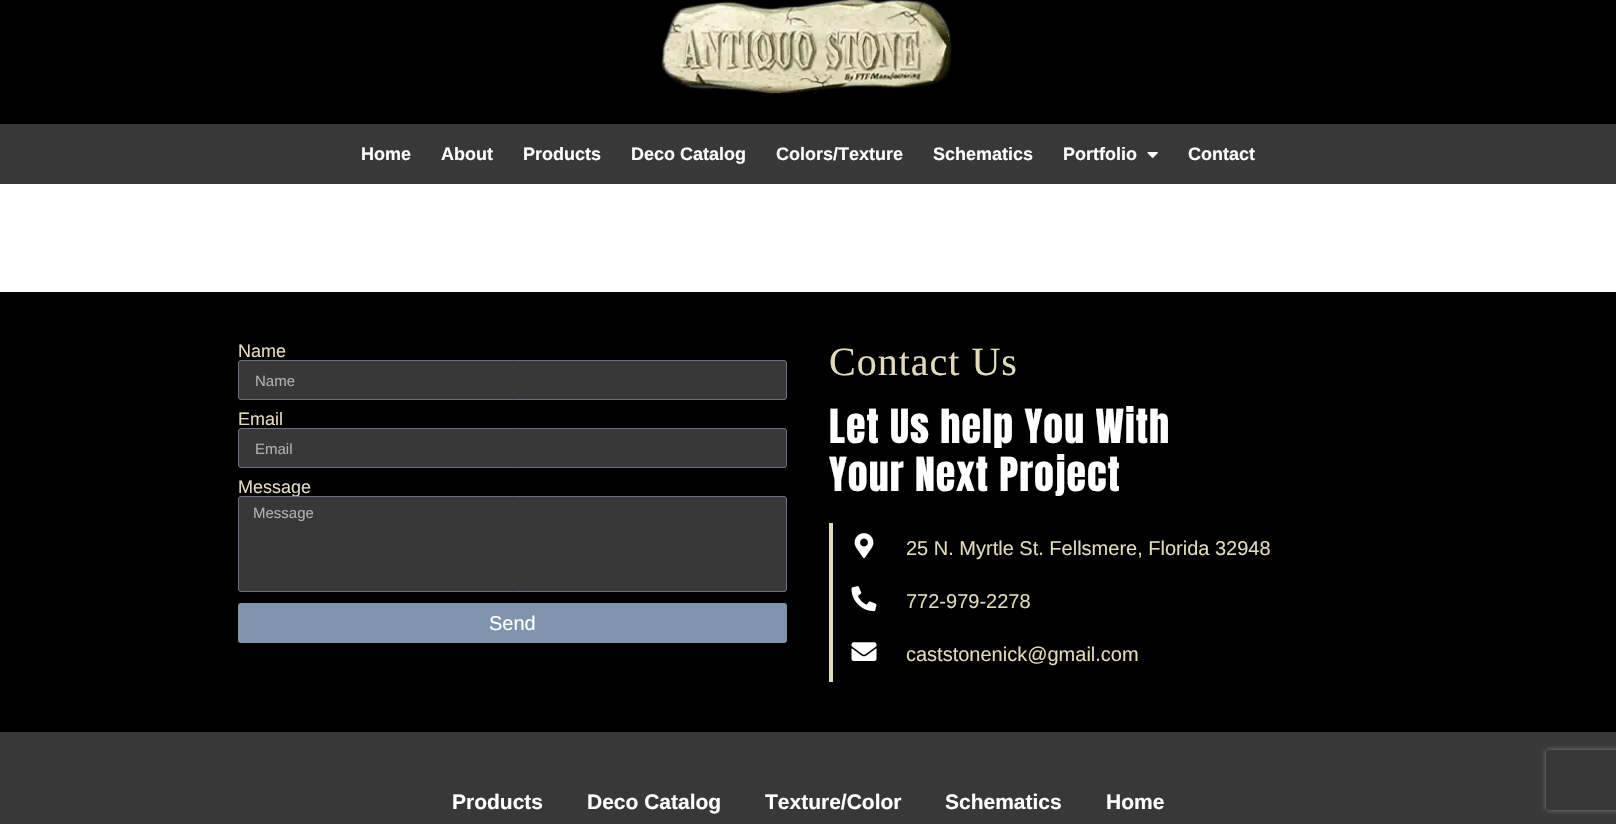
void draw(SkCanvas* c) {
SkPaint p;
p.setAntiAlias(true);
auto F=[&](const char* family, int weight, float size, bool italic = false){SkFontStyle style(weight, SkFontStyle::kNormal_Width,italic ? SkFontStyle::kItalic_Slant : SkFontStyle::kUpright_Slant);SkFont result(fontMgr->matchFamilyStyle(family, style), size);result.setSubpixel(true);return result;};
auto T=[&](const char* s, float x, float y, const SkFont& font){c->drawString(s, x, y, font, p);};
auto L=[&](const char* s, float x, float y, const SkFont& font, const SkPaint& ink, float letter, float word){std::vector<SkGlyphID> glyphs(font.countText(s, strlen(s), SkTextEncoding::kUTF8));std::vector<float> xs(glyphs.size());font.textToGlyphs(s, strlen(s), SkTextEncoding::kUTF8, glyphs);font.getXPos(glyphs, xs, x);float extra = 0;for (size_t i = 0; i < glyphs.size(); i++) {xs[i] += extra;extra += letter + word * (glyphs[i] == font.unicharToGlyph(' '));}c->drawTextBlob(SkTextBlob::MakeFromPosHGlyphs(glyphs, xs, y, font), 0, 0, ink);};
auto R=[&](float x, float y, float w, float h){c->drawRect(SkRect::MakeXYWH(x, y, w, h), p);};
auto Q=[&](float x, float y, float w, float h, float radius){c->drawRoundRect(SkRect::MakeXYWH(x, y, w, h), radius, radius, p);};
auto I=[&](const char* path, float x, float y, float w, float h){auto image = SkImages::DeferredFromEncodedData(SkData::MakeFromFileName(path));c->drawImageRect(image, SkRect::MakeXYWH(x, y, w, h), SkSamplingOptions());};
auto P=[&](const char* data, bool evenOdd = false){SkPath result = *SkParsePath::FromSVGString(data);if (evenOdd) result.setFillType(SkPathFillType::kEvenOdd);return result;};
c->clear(0xffffffff);
p.setColor(0xff000000);
R(0,0,1616,124);
I("1.png",661,0,291,94);
p.setColor(0xff383838);
R(0,124,1616,60);
auto f1 = F("Liberation Sans",700,18);
p.setColor(0xffffffff);
T("Home",361,160,f1);
T("About",441,160,f1);
T("Products",523,160,f1);
T("Deco Catalog",631,160,f1);
T("Colors/Texture",776,160,f1);
T("Schematics",933,160,f1);
T("Portfolio",1063,160,f1);
I("2.png",1147,152,11,6);
T("Contact",1188,160,f1);
p.setColor(0xff000000);
R(0,292,1616,440);
auto f2 = F("Liberation Sans",400,18);
p.setColor(0xffe1dbba);
T("Name",238,357,f2);
p.setColor(0xff383838);
c->drawRoundRect(SkRect::MakeXYWH(238.5,360.5,548,39),2.5,2.5,p);
p.setStroke(true);
p.setStrokeWidth(1);
p.setColor(0xff69727d);
c->drawRoundRect(SkRect::MakeXYWH(238.5,360.5,548,39),2.5,2.5,p);
auto f3 = F("Liberation Sans",400,15);
p.setStroke(false);
p.setColor(0xffafafaf);
T("Name",255,386,f3);
p.setColor(0xffe1dbba);
T("Email",238,425,f2);
p.setColor(0xff383838);
c->drawRoundRect(SkRect::MakeXYWH(238.5,428.5,548,39),2.5,2.5,p);
p.setStroke(true);
p.setColor(0xff69727d);
c->drawRoundRect(SkRect::MakeXYWH(238.5,428.5,548,39),2.5,2.5,p);
p.setStroke(false);
p.setColor(0xffafafaf);
T("Email",255,454,f3);
p.setColor(0xffe1dbba);
T("Message",238,493,f2);
p.setColor(0xff383838);
c->drawRoundRect(SkRect::MakeXYWH(238.5,496.5,548,95),2.5,2.5,p);
p.setStroke(true);
p.setColor(0xff69727d);
c->drawRoundRect(SkRect::MakeXYWH(238.5,496.5,548,95),2.5,2.5,p);
p.setStroke(false);
p.setColor(0xffafafaf);
T("Message",253,518,f3);
p.setColor(0xff7f93ad);
Q(238,603,549,40,3);
auto f4 = F("Liberation Sans",400,20);
p.setColor(0xffffffff);
T("Send",489,630,f4);
p.setColor(0xff383838);
R(0,732,1616,92);
c->save();
c->clipPath(P("M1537 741h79v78h-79zm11 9h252c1 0 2 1 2 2v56c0 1-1 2-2 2h-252c-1 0-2-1-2-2v-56c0-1 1-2 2-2z",true),true);
p.setColor(0xff808080);
p.setMaskFilter(SkMaskFilter::MakeBlur(kNormal_SkBlurStyle, 2.5));
c->drawRoundRect(SkRect::MakeXYWH(1546,750,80,60),2,2,p);
p.setMaskFilter(nullptr);
c->restore();
auto f5 = F("Liberation Serif",400,40);
p.setColor(0xffe1dbba);
L("Contact Us",829,375,f5,p,1,0);
auto f6 = F("Anton",400,40);
p.setColor(0xffffffff);
L("Let Us help You With",829,443,f6,p,1,0);
L("Your Next Project",829,491,f6,p,1,0);
p.setColor(0xffe1dbba);
R(829,523,4,159);
I("3.png",854,533,20,26);
T("25 N. Myrtle St. Fellsmere, Florida 32948",906,555,f4);
I("4.png",851,586,26,26);
T("772-979-2278",906,608,f4);
I("5.png",851,642,26,19);
T("caststonenick@gmail.com",906,661,f4);
auto f7 = F("Liberation Sans",700,21);
p.setColor(0xffffffff);
T("Products",452,809,f7);
T("Deco Catalog",587,809,f7);
T("Texture/Color",765,809,f7);
T("Schematics",945,809,f7);
T("Home",1106,809,f7);
}
